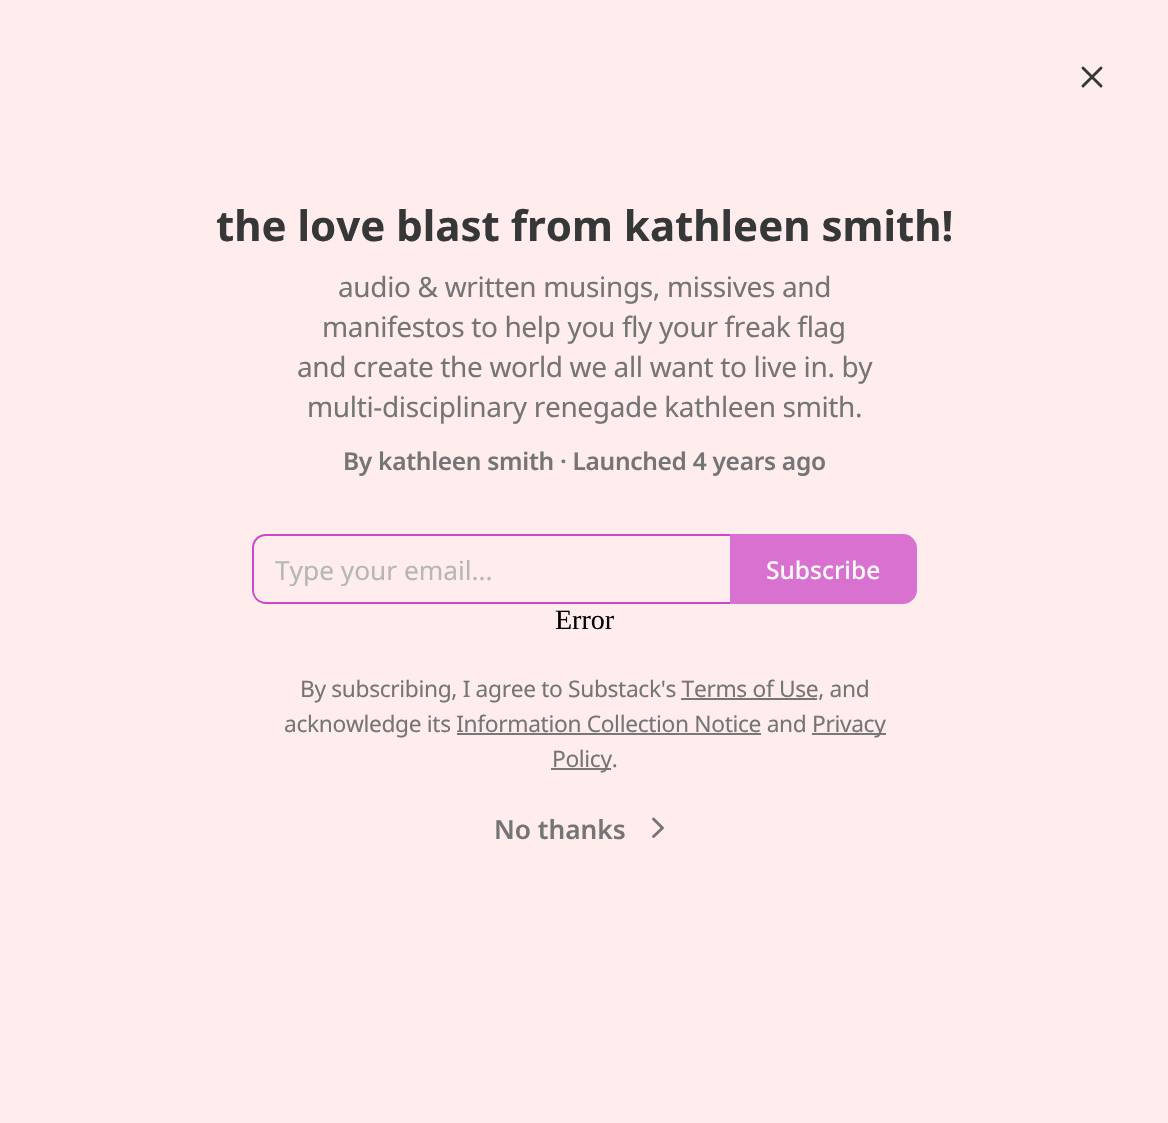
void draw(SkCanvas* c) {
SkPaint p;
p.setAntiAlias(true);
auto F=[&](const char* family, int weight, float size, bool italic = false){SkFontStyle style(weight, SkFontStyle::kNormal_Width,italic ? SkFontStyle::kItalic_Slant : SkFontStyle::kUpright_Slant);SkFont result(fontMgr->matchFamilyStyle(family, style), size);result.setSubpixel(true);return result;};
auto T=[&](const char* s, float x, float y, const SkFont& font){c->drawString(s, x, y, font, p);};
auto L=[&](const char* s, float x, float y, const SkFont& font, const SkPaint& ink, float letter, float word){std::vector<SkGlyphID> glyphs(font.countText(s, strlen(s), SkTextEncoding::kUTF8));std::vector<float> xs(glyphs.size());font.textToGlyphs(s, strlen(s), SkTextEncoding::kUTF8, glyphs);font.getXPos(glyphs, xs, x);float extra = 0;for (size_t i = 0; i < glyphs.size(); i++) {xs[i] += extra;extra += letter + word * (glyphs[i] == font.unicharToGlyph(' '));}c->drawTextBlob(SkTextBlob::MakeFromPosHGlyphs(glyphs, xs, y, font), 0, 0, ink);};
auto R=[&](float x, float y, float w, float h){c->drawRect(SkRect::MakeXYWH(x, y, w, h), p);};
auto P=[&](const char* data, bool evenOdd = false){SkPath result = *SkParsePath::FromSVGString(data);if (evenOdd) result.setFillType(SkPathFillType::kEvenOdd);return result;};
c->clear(0xffffecec);
p.setStroke(true);
p.setStrokeWidth(2.9);
p.setStrokeCap(SkPaint::kRound_Cap);
p.setStrokeJoin(SkPaint::kRound_Join);
p.setColor(0xff363737);
c->drawPath(P("M1101 68l-18 18m0-18l18 18"),p);
auto f1 = F("Noto Sans",700,42);
p.setStroke(false);
T("the love blast from kathleen smith!",216,241,f1);
auto f2 = F("Noto Sans",400,28);
p.setColor(0xff757575);
L("audio & written musings, missives and",338,297,f2,p,-.35,0);
L("manifestos to help you fly your freak flag",322,337,f2,p,-.35,0);
L("and create the world we all want to live in. by",297,377,f2,p,-.35,0);
L("multi-disciplinary renegade kathleen smith.",307,417,f2,p,-.35,0);
auto f3 = F("Noto Sans",600,24.5);
L("By kathleen smith · Launched 4 years ago",343,470,f3,p,-.3,0);
p.setColor(0xffcb48c6);
c->drawPath(P("M266 534h464v70h-464c-8 0-14-7-14-14v-42c0-8 6-14 14-14zm0 2h464v66h-464c-7 0-12-5-12-12v-42c0-7 5-12 12-12z",true),p);
c->save();
c->clipRect(SkRect::MakeXYWH(275,551,434,35));
auto f4 = F("Noto Sans",400,26.25);
p.setColor(0xffb6b6b6);
T("Type your email...",275,580,f4);
c->restore();
p.setColor(0xffd871d0);
c->drawPath(P("M731 535h172c7 0 13 6 13 13v42c0 7-6 13-13 13h-172z"),p);
p.setStroke(true);
p.setStrokeWidth(2);
p.setStrokeCap(SkPaint::kButt_Cap);
p.setStrokeJoin(SkPaint::kMiter_Join);
c->drawPath(P("M731 535h172c7 0 13 6 13 13v42c0 7-6 13-13 13h-172z"),p);
auto f5 = F("Noto Sans",500,24.5);
p.setStroke(false);
p.setColor(0xfffffafa);
T("Subscribe",766,579,f5);
auto f6 = F("Liberation Serif",400,28);
p.setColor(0xff000000);
T("Error",555,629,f6);
auto f7 = F("Noto Sans",400,22.75);
p.setColor(0xff757575);
L("By subscribing, I agree to Substack's Terms of Use, and",300,697,f7,p,-.35,0);
p.setColor(0xff777777);
R(681,698,136,2);
p.setColor(0xff757575);
L("acknowledge its Information Collection Notice and",284,732,f7,p,-.35,0);
p.setColor(0xff777777);
R(812,733,74,2);
p.setColor(0xff757575);
L("Privacy",812,732,f7,p,-.35,0);
p.setColor(0xff777777);
R(457,733,304,2);
R(551,768,60,2);
p.setColor(0xff757575);
L("Policy.",552,767,f7,p,-.35,0);
auto f8 = F("Noto Sans",600,26.25);
T("No thanks",494,839,f8);
p.setStroke(true);
p.setStrokeWidth(2.9);
p.setStrokeCap(SkPaint::kRound_Cap);
p.setStrokeJoin(SkPaint::kRound_Join);
c->drawPath(P("M653.5 836.5l9-8.5l-9-9"),p);
}
